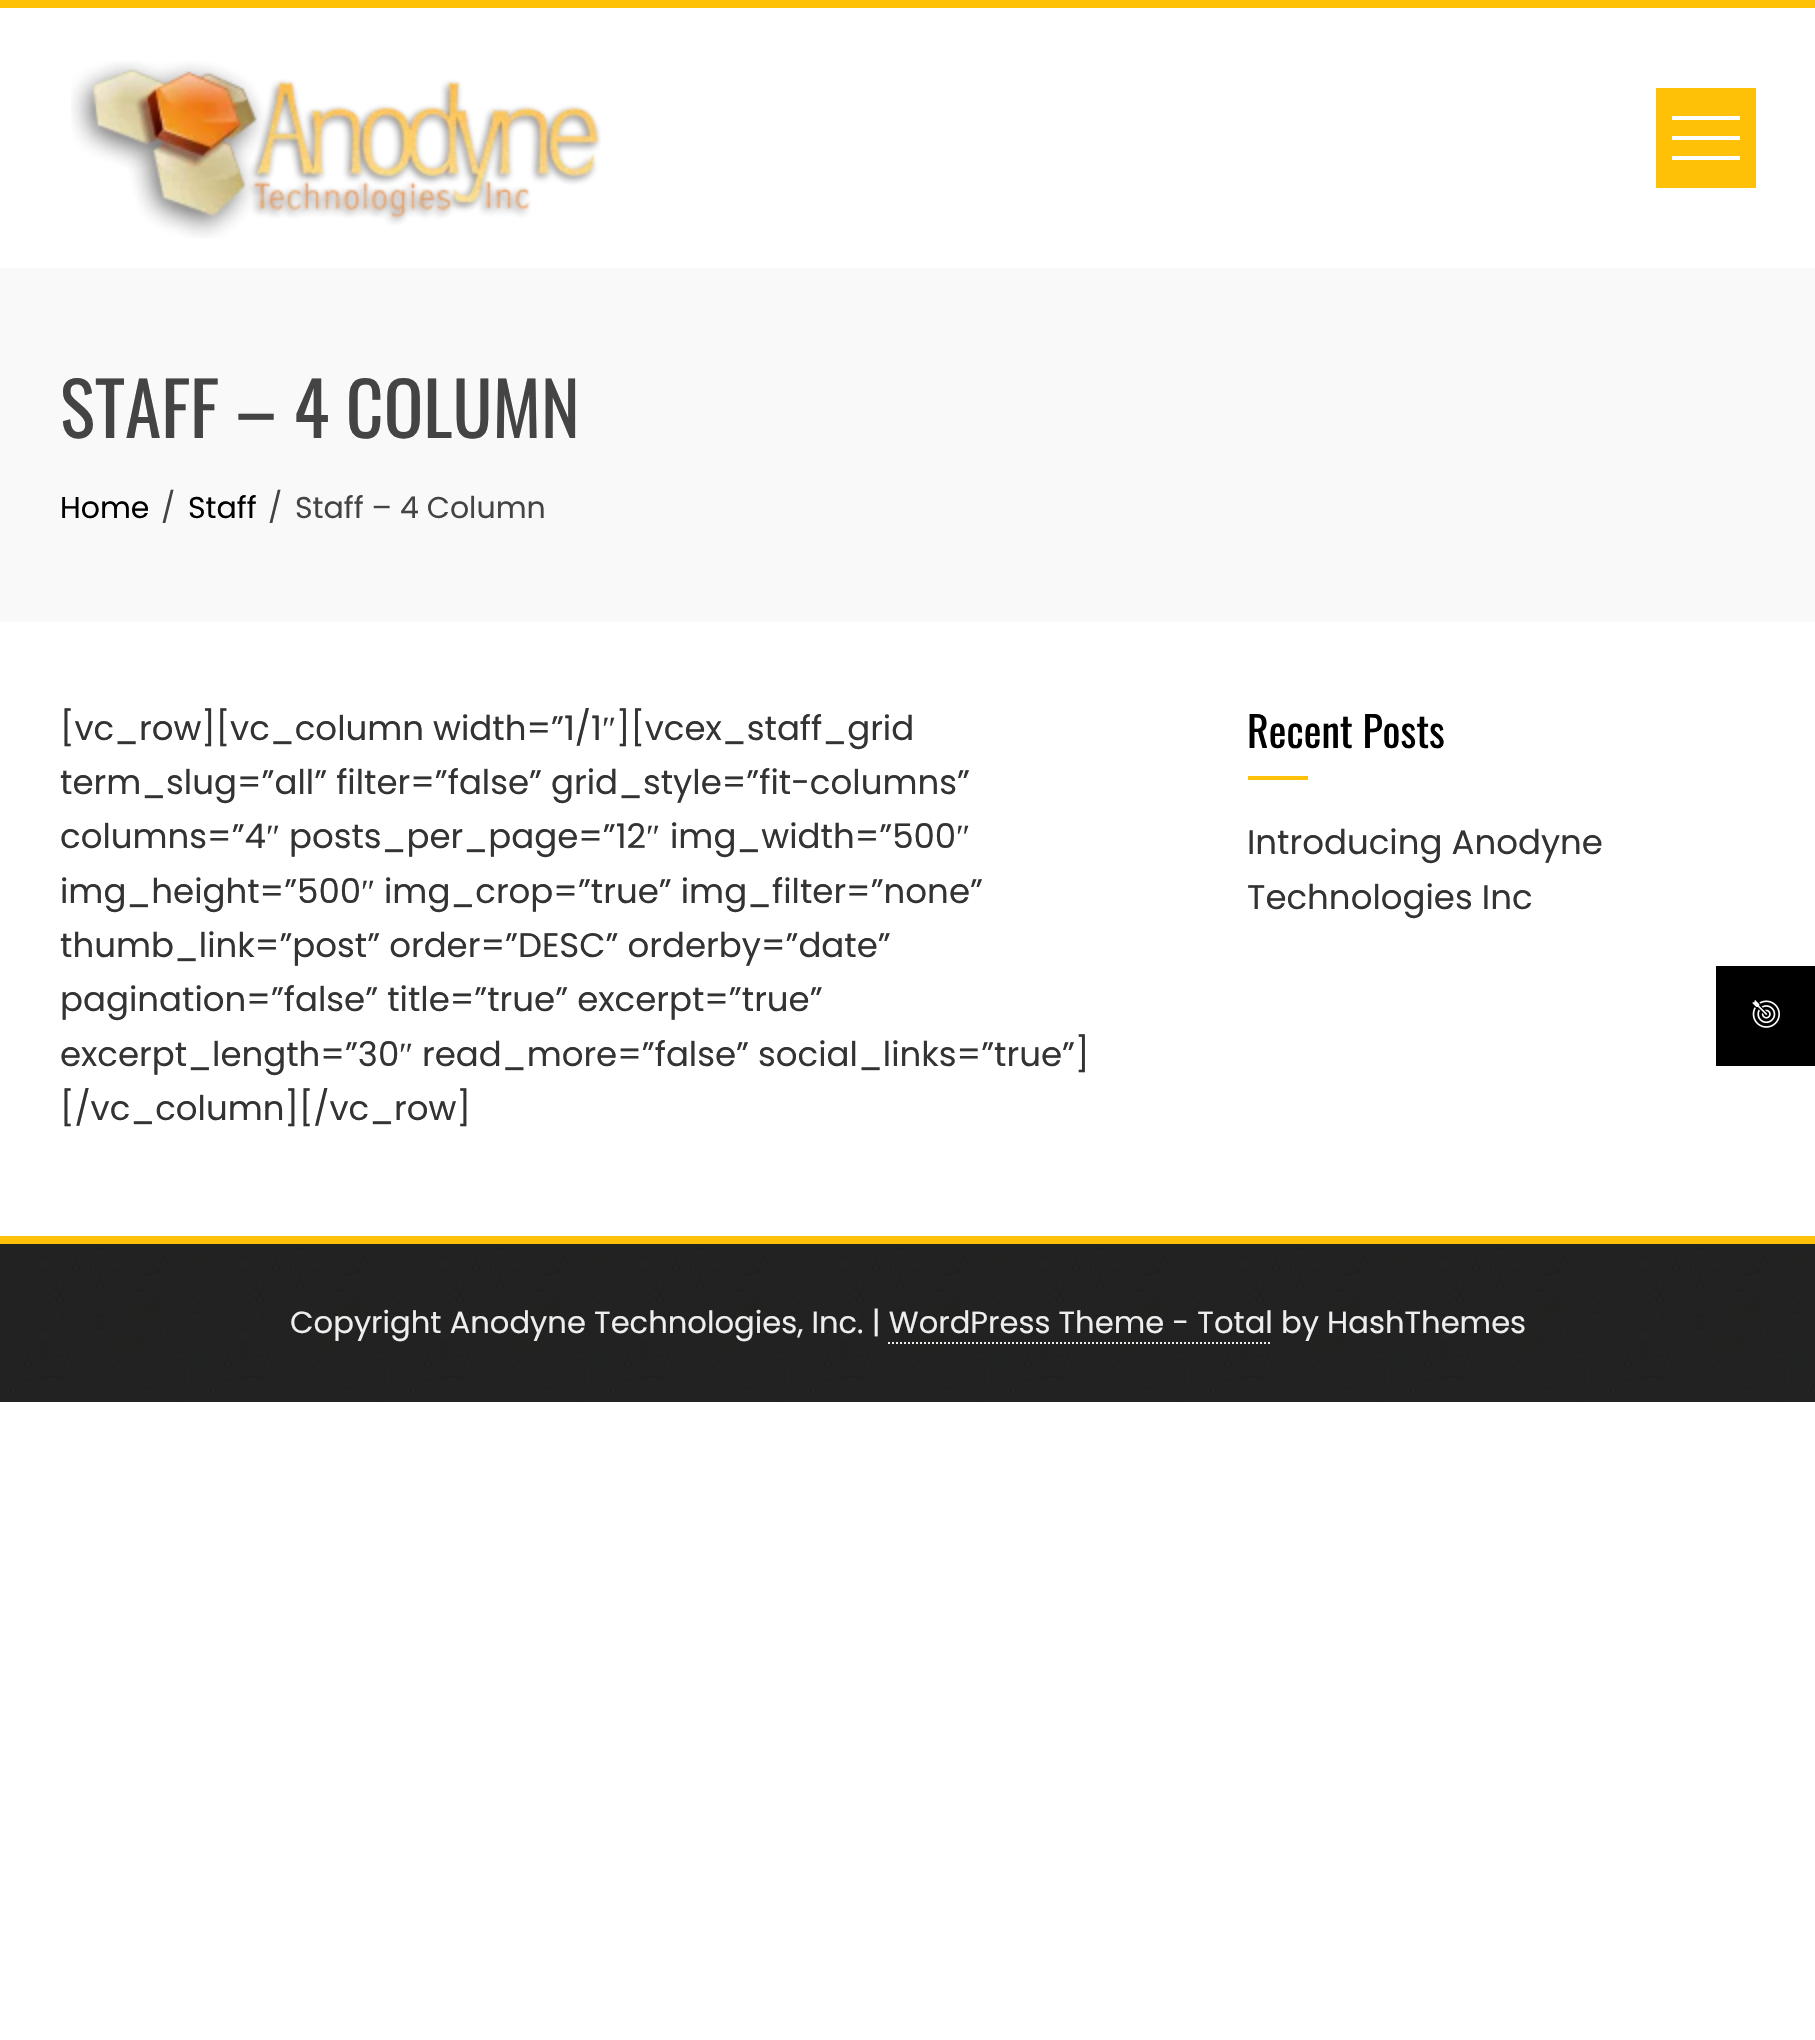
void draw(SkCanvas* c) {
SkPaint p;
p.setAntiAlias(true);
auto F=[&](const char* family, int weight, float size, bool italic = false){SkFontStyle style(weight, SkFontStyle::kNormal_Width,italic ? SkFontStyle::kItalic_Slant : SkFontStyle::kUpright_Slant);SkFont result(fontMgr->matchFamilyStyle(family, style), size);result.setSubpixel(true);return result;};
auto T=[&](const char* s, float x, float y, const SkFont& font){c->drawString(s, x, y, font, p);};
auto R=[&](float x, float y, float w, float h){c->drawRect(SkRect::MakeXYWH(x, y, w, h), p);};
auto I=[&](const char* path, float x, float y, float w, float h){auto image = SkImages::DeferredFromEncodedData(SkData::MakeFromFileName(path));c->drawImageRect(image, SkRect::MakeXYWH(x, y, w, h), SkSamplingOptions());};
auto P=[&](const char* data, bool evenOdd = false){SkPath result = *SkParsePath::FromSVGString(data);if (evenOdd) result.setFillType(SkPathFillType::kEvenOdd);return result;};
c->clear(0xffffffff);
p.setColor(0xffffc107);
R(0,0,1815,8);
I("1.png",71,61,530,177);
R(1656,88,100,100);
p.setColor(0xffffffff);
R(1672,116,68,4);
R(1672,156,68,4);
R(1672,136,68,4);
p.setColor(0xfff9f9f9);
R(0,268,1815,354);
auto f1 = F("Oswald",400,73.5);
p.setColor(0xff444444);
T("STAFF – 4 COLUMN",60,438,f1);
auto f2 = F("Poppins",400,30);
p.setColor(0xff000000);
T("Home",60,518,f2);
p.setColor(0xff444444);
T("/",161,518,f2);
p.setColor(0xff000000);
T("Staff",188,518,f2);
p.setColor(0xff444444);
T("/",268,518,f2);
T("Staff – 4 Column",295,518,f2);
auto f3 = F("Poppins",400,34);
p.setColor(0xff333333);
T("[vc_row][vc_column width=”1/1",60,740,f3);
auto f4 = F("Liberation Serif",400,34);
T("″",602,740,f4);
T("][vcex_staff_grid",616,740,f3);
T("term_slug=”all” filter=”false” grid_style=”fit-columns”",60,794,f3);
T("columns=”4",60,848,f3);
T("″",266,848,f4);
T("posts_per_page=”12",289,848,f3);
T("″",646,848,f4);
T("img_width=”500",670,848,f3);
T("″",956,848,f4);
T("img_height=”500",60,903,f3);
T("″",361,903,f4);
T("img_crop=”true” img_filter=”none”",384,903,f3);
T("thumb_link=”post” order=”DESC” orderby=”date”",60,957,f3);
T("pagination=”false” title=”true” excerpt=”true”",60,1011,f3);
T("excerpt_length=”30",60,1066,f3);
T("″",399,1066,f4);
T("read_more=”false” social_links=”true”]",422,1066,f3);
T("[/vc_column][/vc_row]",60,1120,f3);
auto f5 = F("Oswald",400,42);
p.setColor(0xff000000);
T("Recent Posts",1247,748,f5);
p.setColor(0xffffc107);
R(1248,776,60,4);
p.setColor(0xff333333);
T("Introducing Anodyne",1247,854,f3);
T("Technologies Inc",1247,909,f3);
I("2.png",0,1244,1815,158);
p.setColor(0xffffc107);
R(0,1236,1815,8);
auto f6 = F("Poppins",400,30.6);
p.setColor(0xffeeeeee);
T("Copyright Anodyne Technologies, Inc. | WordPress Theme - Total by HashThemes",290,1333,f6);
p.setStroke(true);
p.setStrokeWidth(2);
p.setPathEffect(SkDashPathEffect::Make({{2,2}}, 0));
c->drawPath(P("M888 1343h384"),p);
p.setPathEffect(nullptr);
p.setStroke(false);
p.setColor(0xff000000);
R(1716,966,99,100);
I("3.png",1752,1000,28,28);
}
